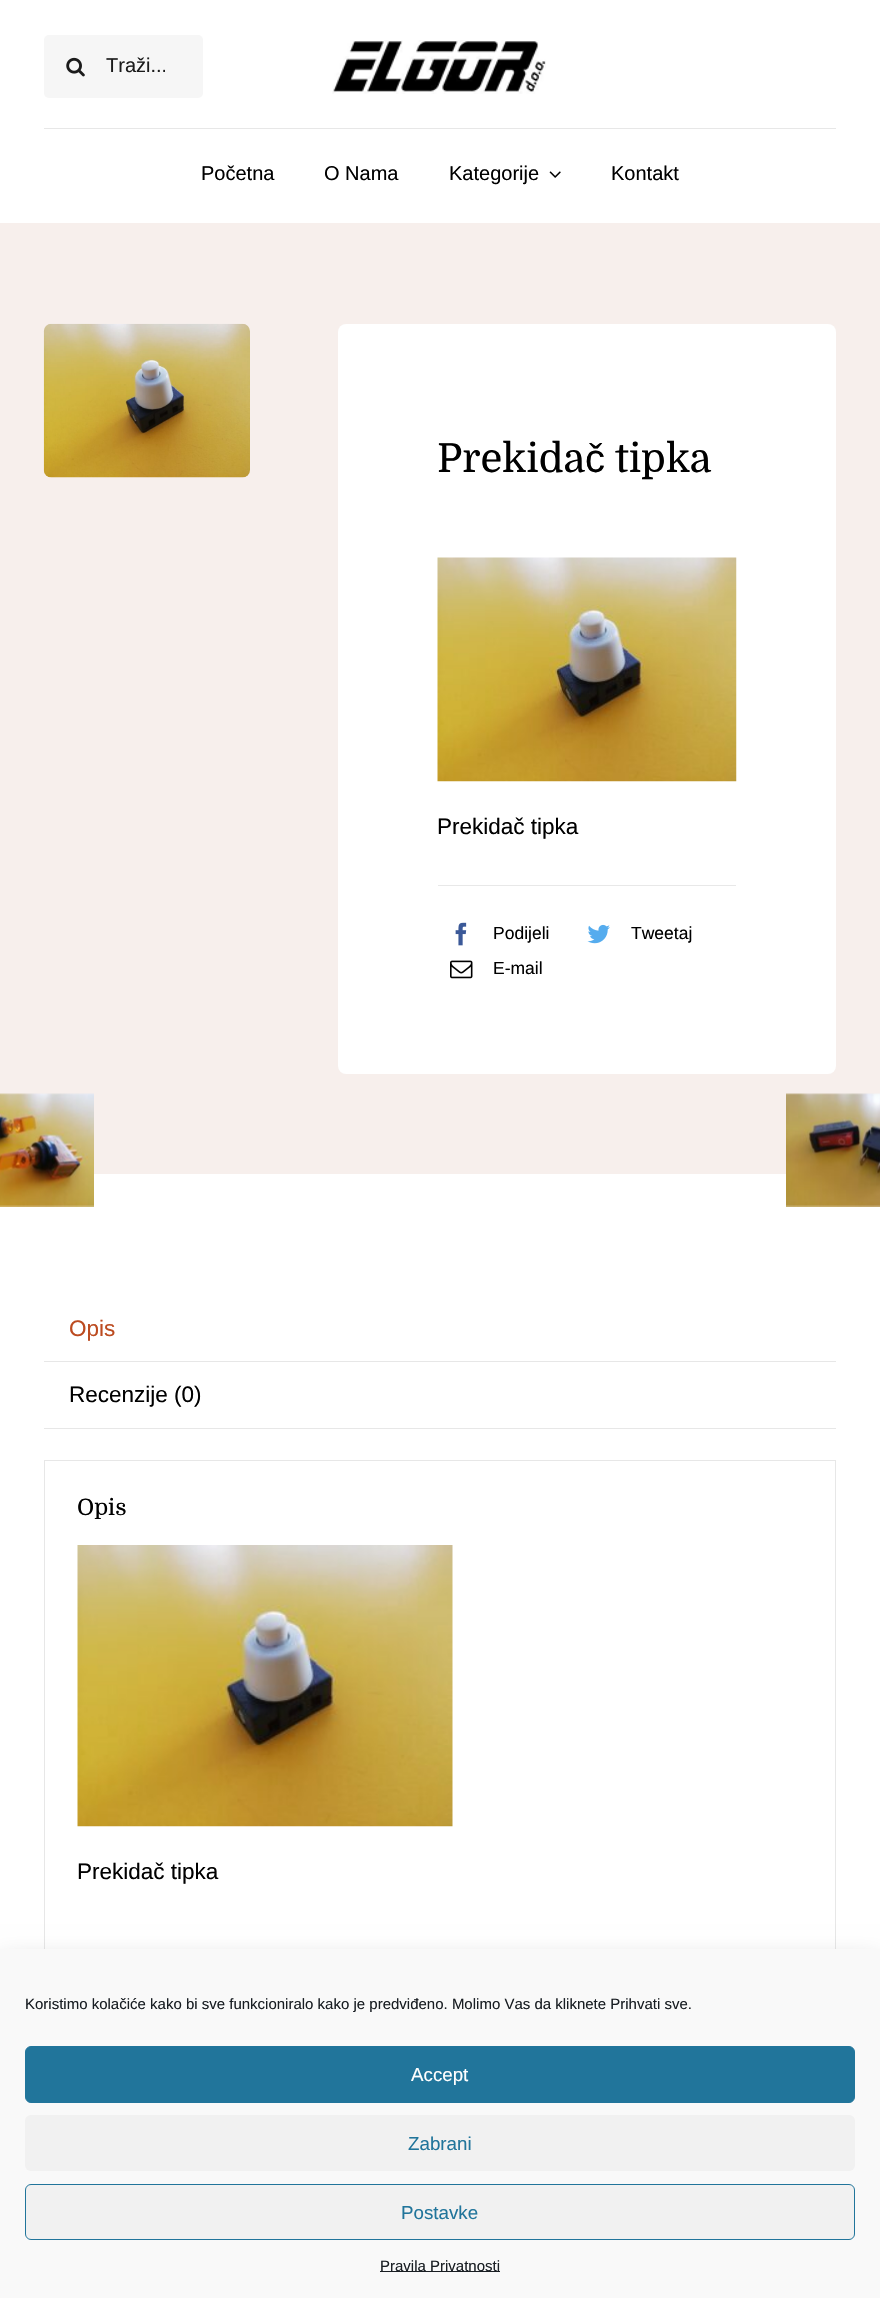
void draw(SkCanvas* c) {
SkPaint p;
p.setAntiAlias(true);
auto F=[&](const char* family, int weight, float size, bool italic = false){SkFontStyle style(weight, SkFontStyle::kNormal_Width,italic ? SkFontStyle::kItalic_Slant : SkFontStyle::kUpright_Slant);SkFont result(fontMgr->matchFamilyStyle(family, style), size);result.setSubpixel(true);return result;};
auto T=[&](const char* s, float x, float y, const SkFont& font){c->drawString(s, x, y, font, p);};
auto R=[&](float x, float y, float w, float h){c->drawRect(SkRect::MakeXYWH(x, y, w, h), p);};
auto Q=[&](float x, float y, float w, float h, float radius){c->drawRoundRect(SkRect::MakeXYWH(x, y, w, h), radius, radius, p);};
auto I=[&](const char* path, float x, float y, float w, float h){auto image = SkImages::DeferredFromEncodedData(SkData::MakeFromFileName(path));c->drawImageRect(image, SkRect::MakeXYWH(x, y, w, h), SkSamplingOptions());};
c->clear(0xffffffff);
p.setColor(0xfff6f6f6);
Q(44,35,159,63,5);
I("1.png",66,57,19,20);
c->save();
c->clipRect(SkRect::MakeXYWH(106,55,59,23));
auto f1 = F("Liberation Sans",400,20);
p.setColor(0xff1b1b1b);
T("Traži...",106,72,f1);
c->restore();
I("2.png",332,40,214,54);
p.setColor(0xffe7e7e7);
R(44,128,792,1);
p.setColor(0xff000000);
T("Početna",201,180,f1);
T("O Nama",324,180,f1);
T("Kategorije",449,180,f1);
I("3.png",549,171,12,7);
T("Kontakt",611,180,f1);
p.setColor(0xfff7efec);
R(0,223,880,951);
I("4.png",43,323,207,155);
p.setColor(0xffffffff);
Q(338,324,498,750,8);
auto f2 = F("Domine",400,40);
p.setColor(0xff000000);
T("Prekida",437,472,f2);
auto f3 = F("Liberation Sans",400,40);
T("č",585,472,f3);
T("tipka",615,472,f2);
I("5.png",437,557,300,225);
auto f4 = F("Liberation Sans",400,22.5);
T("Prekidač tipka",437,834,f4);
p.setColor(0xffe8e8e8);
R(438,885,298,1);
I("6.png",455,922,12,24);
auto f5 = F("Liberation Sans",400,17.5);
p.setColor(0xff000000);
T("Podijeli",493,939,f5);
I("7.png",587,924,23,20);
T("Tweetaj",631,939,f5);
I("8.png",450,960,23,19);
T("E-mail",493,974,f5);
I("9.png",0,1093,94,114);
I("10.png",786,1093,94,114);
p.setColor(0xffe7e7e7);
R(44,1361,792,1);
p.setColor(0xffbc4b20);
T("Opis",69,1336,f4);
p.setColor(0xffe7e7e7);
R(44,1428,792,1);
p.setColor(0xff000000);
T("Recenzije (0)",69,1402,f4);
p.setStroke(true);
p.setStrokeWidth(1);
p.setColor(0xffe7e7e7);
c->drawRect(SkRect::MakeXYWH(44.5,1460.5,791,489),p);
auto f6 = F("Domine",400,22.5);
p.setStroke(false);
p.setColor(0xff000000);
T("Opis",77,1515,f6);
I("11.png",77,1545,376,282);
T("Prekidač tipka",77,1879,f4);
p.setColor(0x30000000);
p.setMaskFilter(SkMaskFilter::MakeBlur(kNormal_SkBlurStyle, 12.5));
c->drawRect(SkRect::MakeXYWH(0,1961,880,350),p);
p.setMaskFilter(nullptr);
p.setColor(0xfff9f9f9);
R(0,1949,880,349);
auto f7 = F("Liberation Sans",400,15);
p.setColor(0xff191e23);
T("Koristimo kolačiće kako bi sve funkcioniralo kako je predviđeno. Molimo Vas da kliknete Prihvati sve.",25,2009,f7);
p.setColor(0xff21759b);
c->drawRoundRect(SkRect::MakeXYWH(25.5,2046.5,829,56),5.5,5.5,p);
p.setStroke(true);
c->drawRoundRect(SkRect::MakeXYWH(25.5,2046.5,829,56),5.5,5.5,p);
auto f8 = F("Liberation Sans",400,18.75);
p.setStroke(false);
p.setColor(0xffffffff);
T("Accept",411,2081,f8);
p.setColor(0xfff1f1f1);
Q(25,2115,830,56,6);
p.setColor(0xff21759b);
T("Zabrani",408,2150,f8);
p.setColor(0xfff1f1f1);
c->drawRoundRect(SkRect::MakeXYWH(25.5,2184.5,829,55),5.5,5.5,p);
p.setStroke(true);
p.setColor(0xff21759b);
c->drawRoundRect(SkRect::MakeXYWH(25.5,2184.5,829,55),5.5,5.5,p);
p.setStroke(false);
T("Postavke",401,2219,f8);
p.setColor(0xff191e23);
R(380,2271,120,1);
T("Pravila Privatnosti",380,2271,f7);
}
